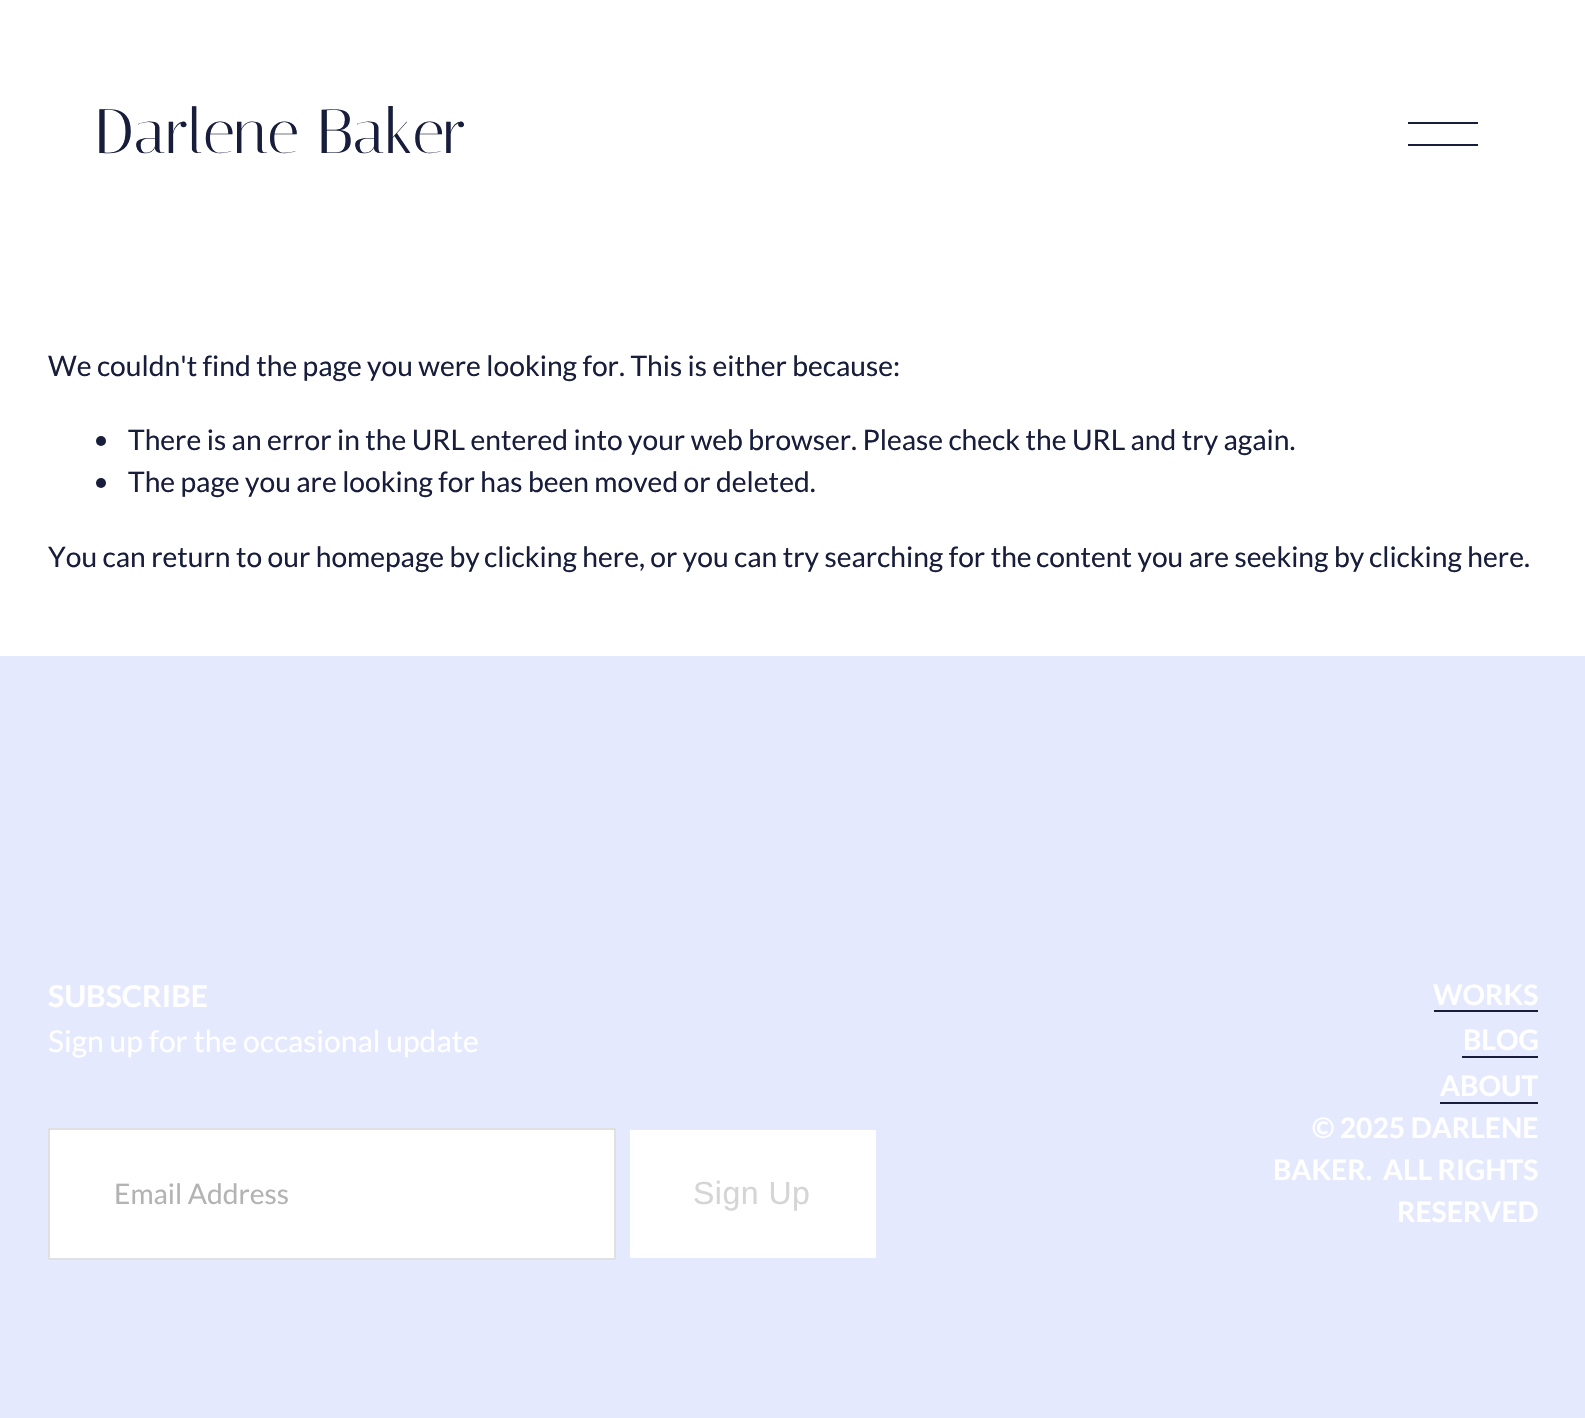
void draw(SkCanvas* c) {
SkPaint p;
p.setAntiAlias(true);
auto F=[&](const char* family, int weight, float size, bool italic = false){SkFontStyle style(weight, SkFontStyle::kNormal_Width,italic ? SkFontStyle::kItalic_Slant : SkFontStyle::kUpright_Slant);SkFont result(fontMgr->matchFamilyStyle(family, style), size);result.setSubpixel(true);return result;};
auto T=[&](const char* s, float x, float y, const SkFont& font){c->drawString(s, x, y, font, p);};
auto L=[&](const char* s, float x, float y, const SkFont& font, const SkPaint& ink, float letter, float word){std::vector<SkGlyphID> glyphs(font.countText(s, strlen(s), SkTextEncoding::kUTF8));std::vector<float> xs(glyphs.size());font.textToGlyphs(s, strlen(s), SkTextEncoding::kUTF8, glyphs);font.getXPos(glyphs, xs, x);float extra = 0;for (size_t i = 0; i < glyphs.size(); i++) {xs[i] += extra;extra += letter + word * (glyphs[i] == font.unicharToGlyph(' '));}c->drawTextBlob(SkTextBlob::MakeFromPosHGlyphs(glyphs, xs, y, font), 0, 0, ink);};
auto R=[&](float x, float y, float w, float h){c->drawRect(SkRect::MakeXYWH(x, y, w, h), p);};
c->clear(0xffffffff);
auto f1 = F("Italiana",400,62.5);
p.setColor(0xff171d3a);
T("Darlene Baker",95,153,f1);
R(1408,122,70,2);
R(1408,144,70,2);
auto f2 = F("Lato",400,28.2);
T("We couldn't find the page you were looking for. This is either because:",48,376,f2);
c->drawCircle(101,441,5,p);
T("There is an error in the URL entered into your web browser. Please check the URL and try again.",128,450,f2);
c->drawCircle(101,483,5,p);
T("The page you are looking for has been moved or deleted.",128,492,f2);
T("You can return to our homepage by",48,567,f2);
T("clicking here, or you can try searching for the",484,567,f2);
T("content you are seeking by",1036,567,f2);
T("clicking here.",1369,567,f2);
p.setColor(0xffe5e9fd);
R(0,656,1585,762);
auto f3 = F("Lato",700,30.1);
p.setColor(0xffffffff);
T("SUBSCRIBE",48,1007,f3);
auto f4 = F("Lato",700,28.2);
T("WORKS",1433,1005,f4);
p.setColor(0xff171d3a);
R(1434,1010,104,2);
auto f5 = F("Lato",400,30.1);
p.setColor(0xffffffff);
T("Sign up for the occasional update",48,1052,f5);
T("BLOG",1463,1050,f4);
p.setColor(0xff171d3a);
R(1462,1056,76,2);
p.setColor(0xffffffff);
T("ABOUT",1440,1096,f4);
p.setColor(0xff171d3a);
R(1440,1102,98,2);
p.setColor(0xffffffff);
c->drawRect(SkRect::MakeXYWH(49,1129,566,130),p);
p.setStroke(true);
p.setStrokeWidth(2);
p.setColor(0xffe0e0e0);
c->drawRect(SkRect::MakeXYWH(49,1129,566,130),p);
p.setStroke(false);
p.setColor(0xffb3b3b3);
T("Email Address",114,1204,f2);
p.setColor(0xffffffff);
R(630,1130,246,128);
auto f6 = F("Liberation Sans",400,32);
p.setColor(0xffd5d5d5);
L("Sign Up",693,1204,f6,p,.5,0);
p.setColor(0xffffffff);
T("© 2025 DARLENE",1312,1138,f4);
T("BAKER.  ALL RIGHTS",1273,1180,f4);
T("RESERVED",1397,1222,f4);
}
